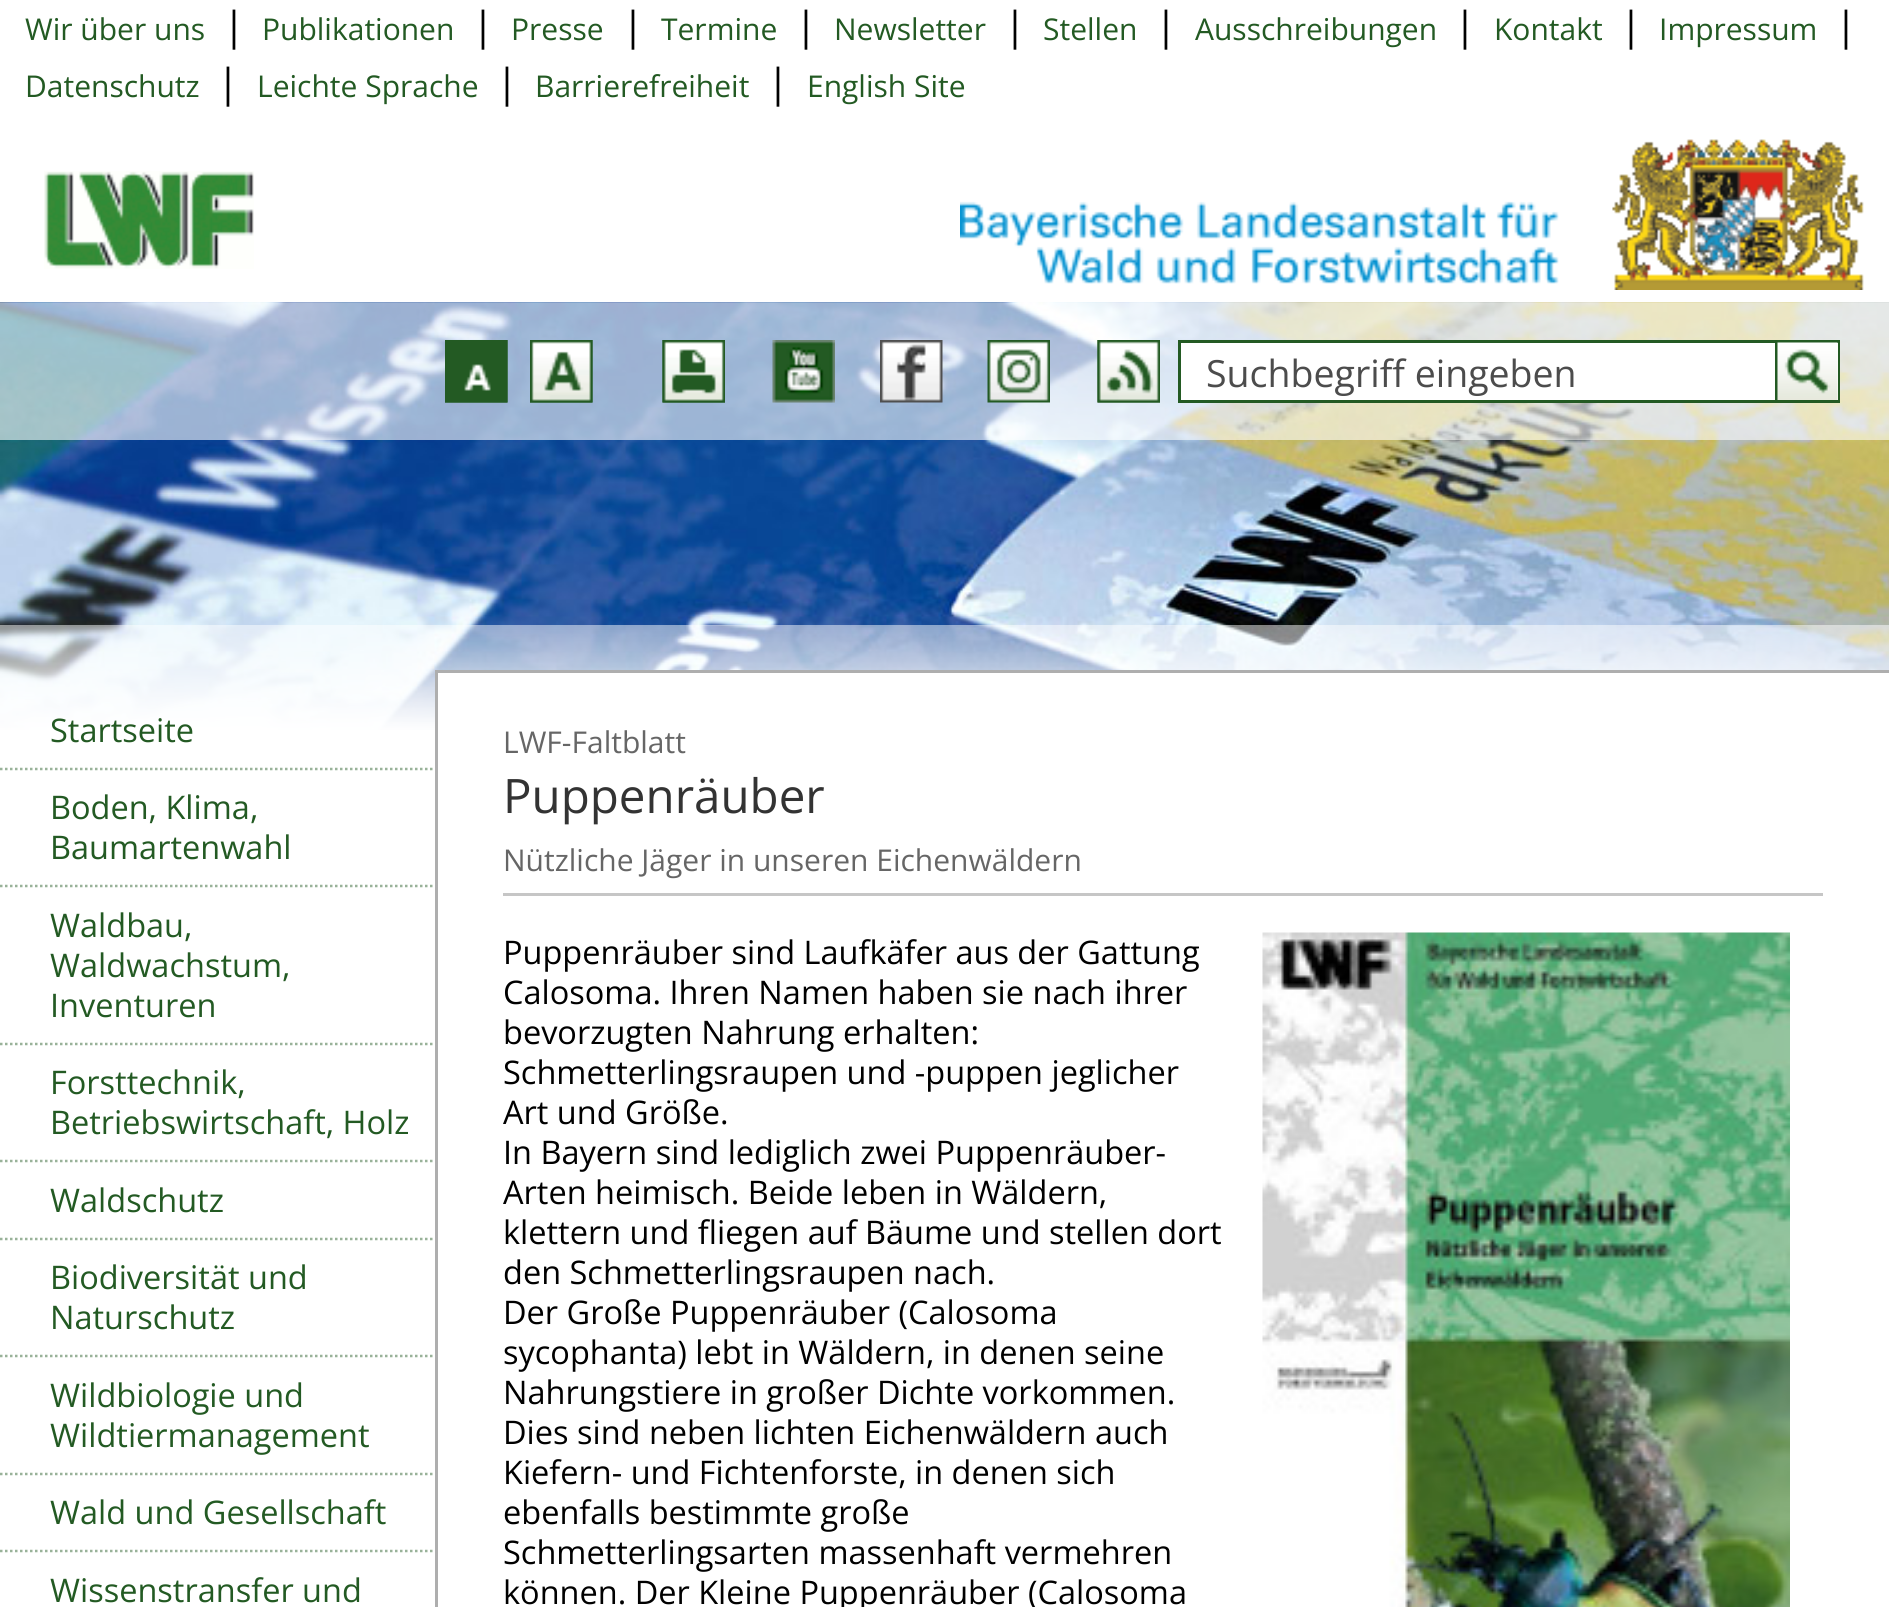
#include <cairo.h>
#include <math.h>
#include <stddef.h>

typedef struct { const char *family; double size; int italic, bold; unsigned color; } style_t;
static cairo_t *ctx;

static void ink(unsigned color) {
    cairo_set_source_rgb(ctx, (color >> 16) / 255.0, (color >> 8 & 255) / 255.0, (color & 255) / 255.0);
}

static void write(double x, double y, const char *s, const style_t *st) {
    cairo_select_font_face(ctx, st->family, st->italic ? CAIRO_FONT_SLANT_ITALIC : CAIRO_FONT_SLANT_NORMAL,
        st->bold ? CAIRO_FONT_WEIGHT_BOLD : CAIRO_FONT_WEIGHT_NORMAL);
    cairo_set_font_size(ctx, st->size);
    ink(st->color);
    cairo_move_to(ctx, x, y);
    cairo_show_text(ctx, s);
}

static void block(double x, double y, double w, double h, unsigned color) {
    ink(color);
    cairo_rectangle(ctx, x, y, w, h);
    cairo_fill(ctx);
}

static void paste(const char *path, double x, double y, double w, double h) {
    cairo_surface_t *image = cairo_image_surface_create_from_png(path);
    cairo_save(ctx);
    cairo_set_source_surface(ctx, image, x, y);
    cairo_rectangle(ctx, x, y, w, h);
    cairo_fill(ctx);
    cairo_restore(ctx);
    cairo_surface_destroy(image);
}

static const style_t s1 = {"Open Sans", 30, 0, 0, 0x235a23};
static const style_t s2 = {"Open Sans", 40, 0, 0, 0x000000};
static const style_t s3 = {"Open Sans", 37.5, 0, 0, 0x4c4c4c};
static const style_t s4 = {"Open Sans", 32.5, 0, 0, 0x235a23};
static const style_t s5 = {"Open Sans", 30, 0, 0, 0x666666};
static const style_t s6 = {"Open Sans", 47.5, 0, 0, 0x333333};
static const style_t s7 = {"Open Sans", 32.5, 0, 0, 0x000000};

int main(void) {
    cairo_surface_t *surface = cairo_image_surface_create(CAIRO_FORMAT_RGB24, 1889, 1607);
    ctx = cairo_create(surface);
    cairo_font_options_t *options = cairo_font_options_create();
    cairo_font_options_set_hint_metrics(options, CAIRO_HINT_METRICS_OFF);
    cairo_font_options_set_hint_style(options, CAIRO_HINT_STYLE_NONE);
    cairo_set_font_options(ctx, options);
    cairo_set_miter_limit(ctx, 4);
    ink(0xffffff);
    cairo_paint(ctx);
    write(25, 40, "Wir über uns", &s1);
    write(223, 40, "|", &s2);
    write(262, 40, "Publikationen", &s1);
    write(472, 40, "|", &s2);
    write(511, 40, "Presse", &s1);
    write(622, 40, "|", &s2);
    write(661, 40, "Termine", &s1);
    write(795, 40, "|", &s2);
    write(834, 40, "Newsletter", &s1);
    write(1004, 40, "|", &s2);
    write(1043, 40, "Stellen", &s1);
    write(1155, 40, "|", &s2);
    write(1195, 40, "Ausschreibungen", &s1);
    write(1454, 40, "|", &s2);
    write(1494, 40, "Kontakt", &s1);
    write(1620, 40, "|", &s2);
    write(1659, 40, "Impressum", &s1);
    write(1835, 40, "|", &s2);
    write(25, 97, "Datenschutz", &s1);
    write(217, 97, "|", &s2);
    write(257, 97, "Leichte Sprache", &s1);
    write(496, 97, "|", &s2);
    write(535, 97, "Barrierefreiheit", &s1);
    write(767, 97, "|", &s2);
    write(807, 97, "English Site", &s1);
    paste("pic1.png", 44, 171, 210, 98);
    paste("pic2.png", 960, 201, 599, 83);
    paste("pic3.png", 1612, 139, 252, 151);
    paste("pic4.png", 0, 302, 1889, 428);
    cairo_set_source_rgba(ctx, 1, 1, 1, 0.6);
    cairo_rectangle(ctx, 0, 303, 1889, 137);
    cairo_fill(ctx);
    paste("pic5.png", 445, 340, 63, 63);
    paste("pic6.png", 445, 340, 63, 63);
    paste("pic7.png", 530, 340, 63, 63);
    paste("pic8.png", 530, 340, 63, 63);
    paste("pic9.png", 662, 340, 63, 63);
    paste("pic10.png", 662, 340, 63, 63);
    paste("pic11.png", 772, 340, 63, 63);
    paste("pic12.png", 880, 340, 63, 63);
    paste("pic13.png", 987, 340, 63, 63);
    paste("pic14.png", 1097, 340, 63, 63);
    paste("pic15.png", 1097, 340, 63, 63);
    block(1181, 343, 594, 57, 0xffffff);
    cairo_rectangle(ctx, 1179.5, 341.5, 659, 60);
    ink(0x235a23);
    cairo_set_line_width(ctx, 3);
    cairo_stroke(ctx);
    write(1206, 387, "Suchbegriff eingeben", &s3);
    block(1837, 343, 1, 57, 0xffffff);
    block(1775, 340, 3, 63, 0x235a23);
    paste("pic16.png", 1777, 342, 61, 58);
    paste("pic17.png", 0, 625, 1889, 105);
    cairo_new_path(ctx);
    cairo_move_to(ctx, 0, 769);
    cairo_line_to(ctx, 435, 769);
    ink(0x99b299);
    cairo_set_line_width(ctx, 2.5);
    cairo_set_dash(ctx, (double[]){2.5, 2.5}, 2, 0);
    cairo_stroke(ctx);
    write(50, 742, "Startseite", &s4);
    cairo_new_path(ctx);
    cairo_move_to(ctx, 0, 886);
    cairo_line_to(ctx, 435, 886);
    ink(0x99b299);
    cairo_stroke(ctx);
    write(50, 819, "Boden, Klima,", &s4);
    write(50, 859, "Baumartenwahl", &s4);
    cairo_new_path(ctx);
    cairo_move_to(ctx, 0, 1044);
    cairo_line_to(ctx, 435, 1044);
    ink(0x99b299);
    cairo_stroke(ctx);
    write(50, 937, "Waldbau,", &s4);
    write(50, 977, "Waldwachstum,", &s4);
    write(50, 1017, "Inventuren", &s4);
    cairo_new_path(ctx);
    cairo_move_to(ctx, 0, 1161);
    cairo_line_to(ctx, 435, 1161);
    ink(0x99b299);
    cairo_stroke(ctx);
    write(50, 1094, "Forsttechnik,", &s4);
    write(50, 1134, "Betriebswirtschaft, Holz", &s4);
    cairo_new_path(ctx);
    cairo_move_to(ctx, 0, 1239);
    cairo_line_to(ctx, 435, 1239);
    ink(0x99b299);
    cairo_stroke(ctx);
    write(50, 1212, "Waldschutz", &s4);
    cairo_new_path(ctx);
    cairo_move_to(ctx, 0, 1356);
    cairo_line_to(ctx, 435, 1356);
    ink(0x99b299);
    cairo_stroke(ctx);
    write(50, 1289, "Biodiversität und", &s4);
    write(50, 1329, "Naturschutz", &s4);
    cairo_new_path(ctx);
    cairo_move_to(ctx, 0, 1474);
    cairo_line_to(ctx, 435, 1474);
    ink(0x99b299);
    cairo_stroke(ctx);
    write(50, 1407, "Wildbiologie und", &s4);
    write(50, 1447, "Wildtiermanagement", &s4);
    cairo_new_path(ctx);
    cairo_move_to(ctx, 0, 1551);
    cairo_line_to(ctx, 435, 1551);
    ink(0x99b299);
    cairo_stroke(ctx);
    write(50, 1524, "Wald und Gesellschaft", &s4);
    write(50, 1602, "Wissenstransfer und", &s4);
    block(438, 673, 1451, 57, 0xffffff);
    block(435, 670, 1454, 3, 0xaeaeae);
    block(435, 670, 3, 937, 0xaeaeae);
    block(503, 893, 1320, 3, 0xc6c6c6);
    write(503, 753, "LWF-Faltblatt", &s5);
    write(503, 813, "Puppenräuber", &s6);
    write(503, 871, "Nützliche Jäger in unseren Eichenwäldern", &s5);
    write(503, 964, "Puppenräuber sind Laufkäfer aus der Gattung", &s7);
    write(503, 1004, "Calosoma. Ihren Namen haben sie nach ihrer", &s7);
    write(503, 1044, "bevorzugten Nahrung erhalten:", &s7);
    write(503, 1084, "Schmetterlingsraupen und -puppen jeglicher", &s7);
    write(503, 1124, "Art und Größe.", &s7);
    write(503, 1164, "In Bayern sind lediglich zwei Puppenräuber-", &s7);
    write(503, 1204, "Arten heimisch. Beide leben in Wäldern,", &s7);
    write(503, 1244, "klettern und fliegen auf Bäume und stellen dort", &s7);
    write(503, 1284, "den Schmetterlingsraupen nach.", &s7);
    write(503, 1324, "Der Große Puppenräuber (Calosoma", &s7);
    write(503, 1364, "sycophanta) lebt in Wäldern, in denen seine", &s7);
    write(503, 1404, "Nahrungstiere in großer Dichte vorkommen.", &s7);
    write(503, 1444, "Dies sind neben lichten Eichenwäldern auch", &s7);
    write(503, 1484, "Kiefern- und Fichtenforste, in denen sich", &s7);
    write(503, 1524, "ebenfalls bestimmte große", &s7);
    write(503, 1564, "Schmetterlingsarten massenhaft vermehren", &s7);
    write(503, 1604, "können. Der Kleine Puppenräuber (Calosoma", &s7);
    paste("pic18.png", 1262, 932, 528, 675);
    cairo_surface_write_to_png(surface, "screenshot.png");
    cairo_font_options_destroy(options);
    cairo_destroy(ctx);
    cairo_surface_destroy(surface);
    return 0;
}
